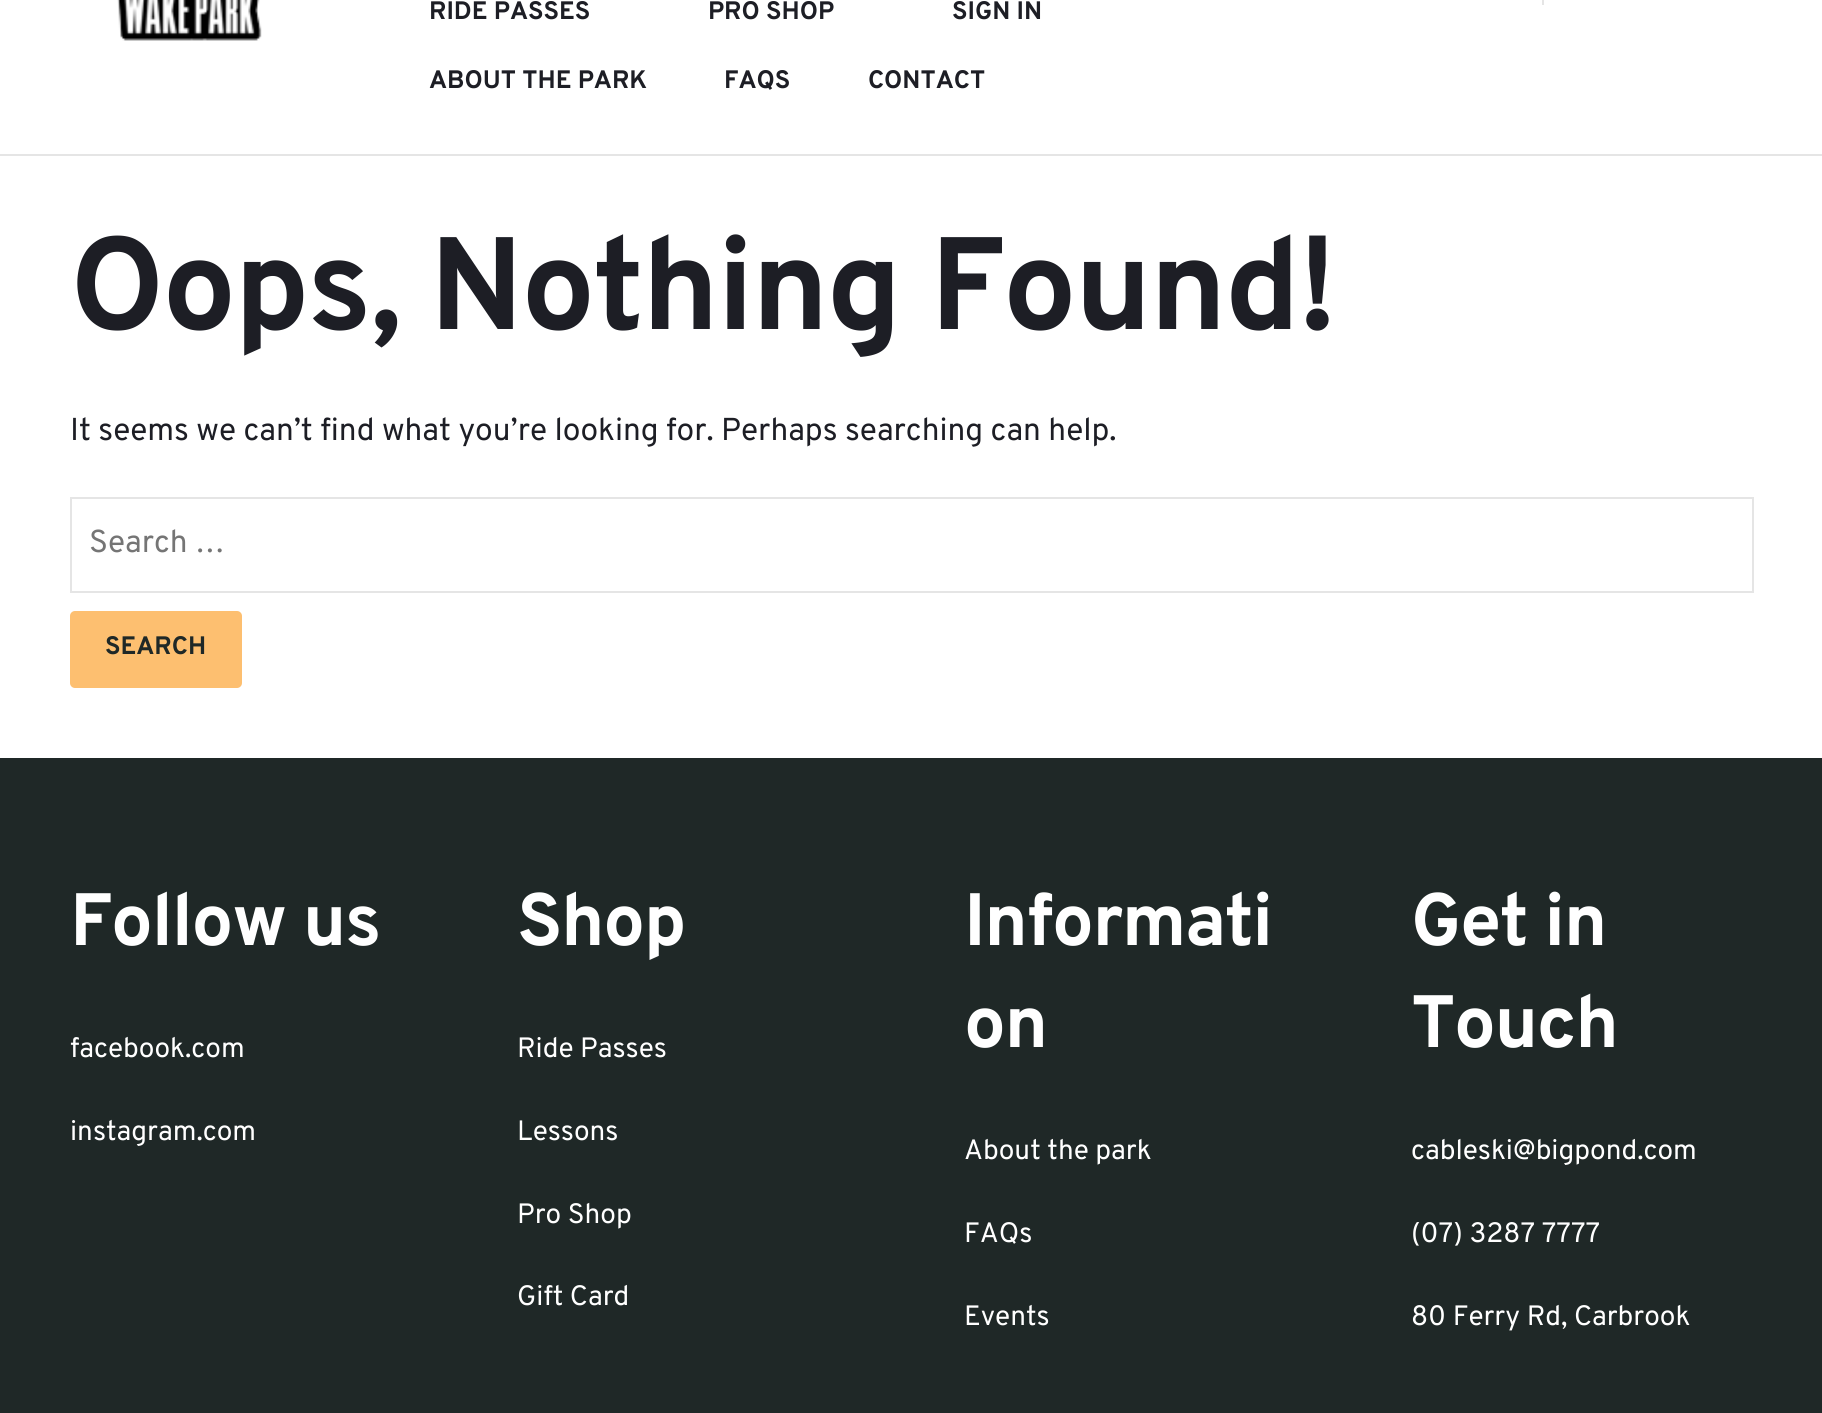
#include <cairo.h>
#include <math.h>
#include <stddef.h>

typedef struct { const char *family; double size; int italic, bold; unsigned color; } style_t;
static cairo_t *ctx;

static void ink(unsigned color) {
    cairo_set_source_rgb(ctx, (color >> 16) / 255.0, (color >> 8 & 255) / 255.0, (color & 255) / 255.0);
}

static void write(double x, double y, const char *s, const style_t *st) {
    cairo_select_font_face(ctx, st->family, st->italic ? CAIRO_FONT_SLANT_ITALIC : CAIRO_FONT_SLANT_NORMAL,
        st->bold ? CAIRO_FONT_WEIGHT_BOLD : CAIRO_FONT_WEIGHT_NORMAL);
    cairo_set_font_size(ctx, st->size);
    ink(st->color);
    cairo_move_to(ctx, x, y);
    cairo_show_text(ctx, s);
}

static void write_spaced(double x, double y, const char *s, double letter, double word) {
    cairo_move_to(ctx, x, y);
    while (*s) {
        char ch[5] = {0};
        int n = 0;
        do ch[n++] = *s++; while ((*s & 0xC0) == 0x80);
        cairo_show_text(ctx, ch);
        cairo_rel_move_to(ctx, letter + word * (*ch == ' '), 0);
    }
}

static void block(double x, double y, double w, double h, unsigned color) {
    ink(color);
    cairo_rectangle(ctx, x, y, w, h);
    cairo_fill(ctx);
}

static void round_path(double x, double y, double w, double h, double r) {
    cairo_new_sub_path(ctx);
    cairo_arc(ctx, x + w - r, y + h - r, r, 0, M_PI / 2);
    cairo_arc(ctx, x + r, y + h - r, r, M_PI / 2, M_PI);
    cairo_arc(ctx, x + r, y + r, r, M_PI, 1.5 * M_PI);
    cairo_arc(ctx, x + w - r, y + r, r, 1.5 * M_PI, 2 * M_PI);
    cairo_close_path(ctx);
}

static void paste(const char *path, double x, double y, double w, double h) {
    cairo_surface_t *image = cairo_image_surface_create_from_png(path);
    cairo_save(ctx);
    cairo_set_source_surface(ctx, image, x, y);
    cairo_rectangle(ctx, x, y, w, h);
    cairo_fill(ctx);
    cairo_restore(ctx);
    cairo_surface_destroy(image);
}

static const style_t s1 = {"Overpass", 25.25, 0, 1, 0x1d1e25};
static const style_t s2 = {"Overpass", 31.65, 0, 0, 0x1d1e25};
static const style_t s3 = {"Overpass", 31.65, 0, 0, 0x757575};
static const style_t s4 = {"Overpass", 25.25, 0, 1, 0x1f2827};
static const style_t s5 = {"Overpass", 28, 0, 0, 0xffffff};

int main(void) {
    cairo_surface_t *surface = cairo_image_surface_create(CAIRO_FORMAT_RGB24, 1822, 1413);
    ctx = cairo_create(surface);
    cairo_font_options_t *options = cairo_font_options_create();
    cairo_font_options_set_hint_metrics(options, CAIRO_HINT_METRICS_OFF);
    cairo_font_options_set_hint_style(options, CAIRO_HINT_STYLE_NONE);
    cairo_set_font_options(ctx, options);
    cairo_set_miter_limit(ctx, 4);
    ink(0xffffff);
    cairo_paint(ctx);
    block(0, 154, 1822, 2, 0xe5e5e5);
    paste("pic1.png", 117, 0, 145, 41);
    write(429, 19, "RIDE PASSES", &s1);
    write(708, 19, "PRO SHOP", &s1);
    write(952, 19, "SIGN IN", &s1);
    write(429, 88, "ABOUT THE PARK", &s1);
    write(724, 88, "FAQS", &s1);
    write(868, 88, "CONTACT", &s1);
    block(1542, 0, 2, 5, 0xe5e5e5);
    cairo_set_font_size(ctx, 131.25);
    ink(0x1d1e25);
    write_spaced(70, 329, "Oops, Nothing Found!", -2.6, 0);
    write(70, 440, "It seems we can’t find what you’re looking for. Perhaps searching can help.", &s2);
    cairo_rectangle(ctx, 71, 498, 1682, 94);
    ink(0xe5e5e5);
    cairo_stroke(ctx);
    write(89, 552, "Search …", &s3);
    ink(0xfdbf70);
    round_path(70, 611, 172, 77, 5);
    cairo_fill(ctx);
    write(105, 654, "SEARCH", &s4);
    block(0, 758, 1822, 655, 0x1f2827);
    cairo_set_font_size(ctx, 74);
    ink(0xffffff);
    write_spaced(70, 945, "Follow us", -1.5, 0);
    write(70, 1057, "facebook.com", &s5);
    write(70, 1140, "instagram.com", &s5);
    cairo_select_font_face(ctx, "Overpass", CAIRO_FONT_SLANT_NORMAL, CAIRO_FONT_WEIGHT_BOLD);
    cairo_set_font_size(ctx, 74);
    write_spaced(517, 945, "Shop", -1.5, 0);
    write(517, 1057, "Ride Passes", &s5);
    write(517, 1140, "Lessons", &s5);
    write(517, 1223, "Pro Shop", &s5);
    write(517, 1305, "Gift Card", &s5);
    cairo_select_font_face(ctx, "Overpass", CAIRO_FONT_SLANT_NORMAL, CAIRO_FONT_WEIGHT_BOLD);
    cairo_set_font_size(ctx, 74);
    write_spaced(964, 945, "Informati", -1.5, 0);
    write_spaced(964, 1047, "on", -1.5, 0);
    write(964, 1159, "About the park", &s5);
    write(964, 1242, "FAQs", &s5);
    write(964, 1325, "Events", &s5);
    cairo_select_font_face(ctx, "Overpass", CAIRO_FONT_SLANT_NORMAL, CAIRO_FONT_WEIGHT_BOLD);
    cairo_set_font_size(ctx, 74);
    write_spaced(1411, 945, "Get in", -1.5, 0);
    write_spaced(1411, 1047, "Touch", -1.5, 0);
    write(1411, 1159, "cableski@bigpond.com", &s5);
    write(1411, 1242, "(07) 3287 7777", &s5);
    write(1411, 1325, "80 Ferry Rd, Carbrook", &s5);
    cairo_surface_write_to_png(surface, "screenshot.png");
    cairo_font_options_destroy(options);
    cairo_destroy(ctx);
    cairo_surface_destroy(surface);
    return 0;
}
